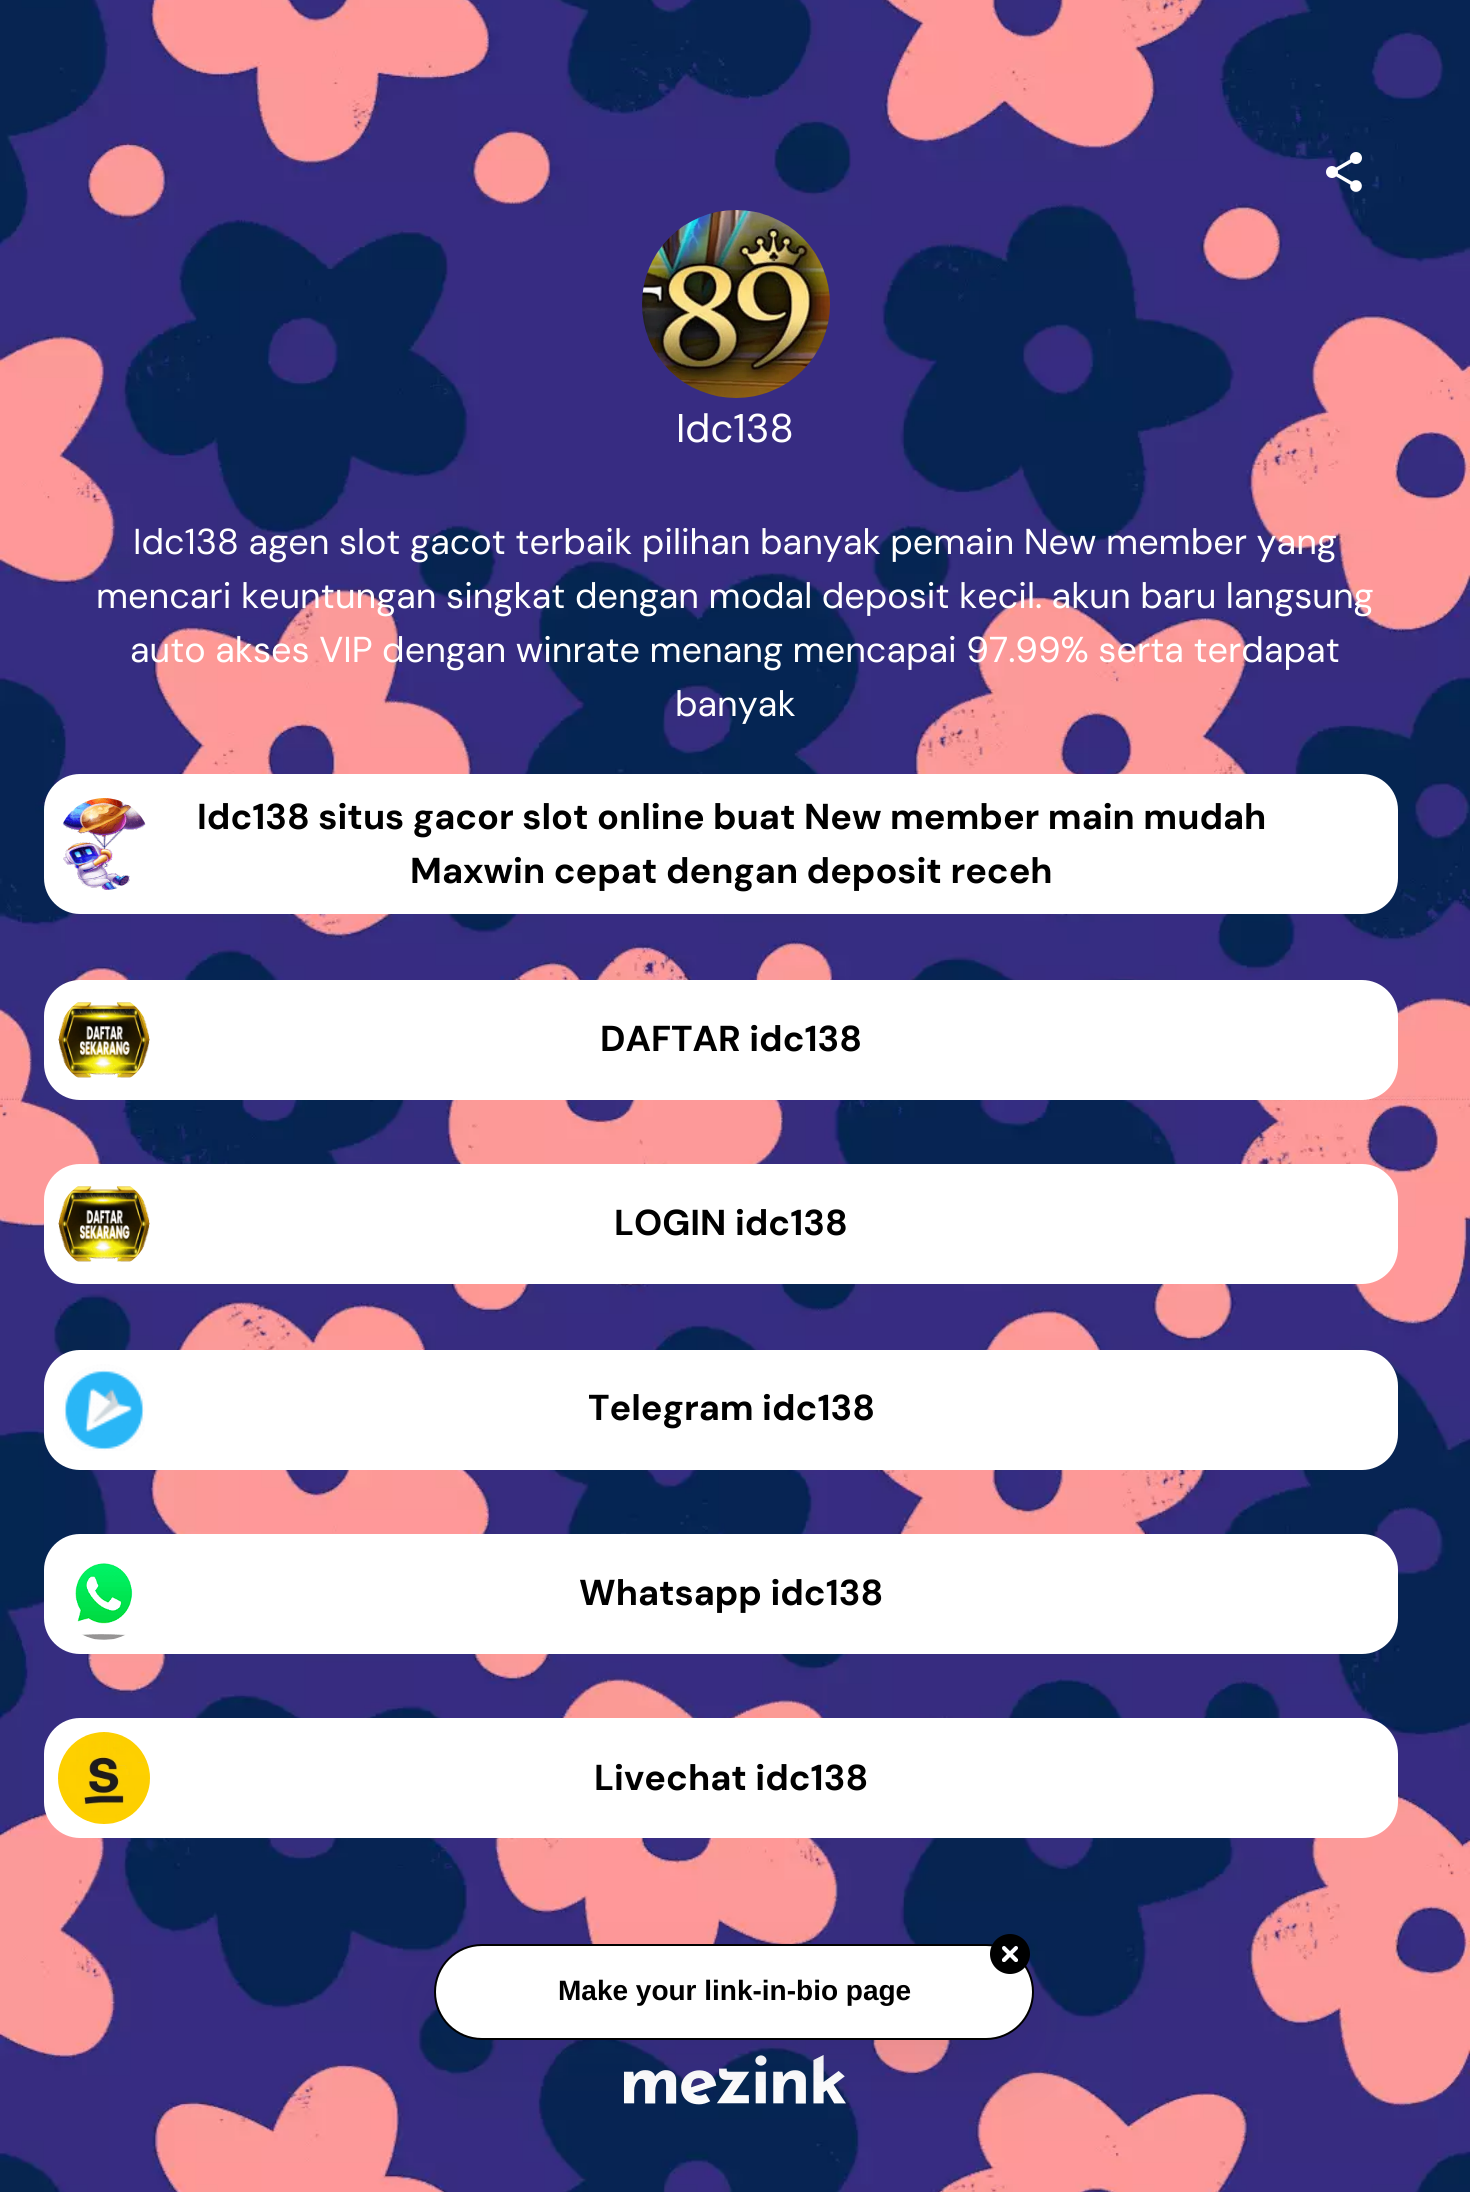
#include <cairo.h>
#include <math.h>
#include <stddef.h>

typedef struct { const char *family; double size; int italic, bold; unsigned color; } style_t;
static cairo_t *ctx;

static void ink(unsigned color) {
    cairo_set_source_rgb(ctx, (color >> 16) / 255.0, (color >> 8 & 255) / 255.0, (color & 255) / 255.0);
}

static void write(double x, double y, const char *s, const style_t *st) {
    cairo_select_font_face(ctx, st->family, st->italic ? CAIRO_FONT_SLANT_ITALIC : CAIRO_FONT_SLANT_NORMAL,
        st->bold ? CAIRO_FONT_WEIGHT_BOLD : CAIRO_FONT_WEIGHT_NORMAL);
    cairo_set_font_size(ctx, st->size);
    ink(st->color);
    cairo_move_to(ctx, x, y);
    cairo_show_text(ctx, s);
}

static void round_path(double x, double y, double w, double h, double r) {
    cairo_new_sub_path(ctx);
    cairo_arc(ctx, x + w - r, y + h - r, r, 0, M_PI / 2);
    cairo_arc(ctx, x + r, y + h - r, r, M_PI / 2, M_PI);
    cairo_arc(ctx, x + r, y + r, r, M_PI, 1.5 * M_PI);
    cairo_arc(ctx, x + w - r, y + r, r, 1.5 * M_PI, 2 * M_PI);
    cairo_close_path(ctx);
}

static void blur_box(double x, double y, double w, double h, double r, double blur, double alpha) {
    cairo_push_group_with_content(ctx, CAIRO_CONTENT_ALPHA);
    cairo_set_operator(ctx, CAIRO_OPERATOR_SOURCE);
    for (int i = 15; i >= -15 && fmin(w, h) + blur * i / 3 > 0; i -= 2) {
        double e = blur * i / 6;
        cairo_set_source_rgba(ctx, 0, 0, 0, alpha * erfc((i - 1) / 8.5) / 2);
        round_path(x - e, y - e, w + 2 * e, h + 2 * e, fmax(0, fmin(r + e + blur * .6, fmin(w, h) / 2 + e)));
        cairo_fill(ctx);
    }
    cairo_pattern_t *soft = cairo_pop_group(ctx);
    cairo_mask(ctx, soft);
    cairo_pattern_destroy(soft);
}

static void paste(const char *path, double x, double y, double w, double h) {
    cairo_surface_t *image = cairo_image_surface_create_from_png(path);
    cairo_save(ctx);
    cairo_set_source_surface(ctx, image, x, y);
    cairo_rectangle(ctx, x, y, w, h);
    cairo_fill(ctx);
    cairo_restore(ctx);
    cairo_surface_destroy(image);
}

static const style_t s1 = {"DM Sans", 40, 0, 0, 0xffffff};
static const style_t s2 = {"DM Sans", 36, 0, 0, 0xffffff};
static const style_t s3 = {"DM Sans", 36, 0, 1, 0x000000};
static const style_t s4 = {"Arimo", 28, 0, 1, 0x000000};

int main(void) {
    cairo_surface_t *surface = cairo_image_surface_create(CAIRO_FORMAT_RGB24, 1470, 2192);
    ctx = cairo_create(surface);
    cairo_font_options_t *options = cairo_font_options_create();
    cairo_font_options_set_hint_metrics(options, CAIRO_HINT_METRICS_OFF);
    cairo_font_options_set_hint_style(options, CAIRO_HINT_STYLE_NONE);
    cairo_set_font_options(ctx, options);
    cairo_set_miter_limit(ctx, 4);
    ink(0xffffff);
    cairo_paint(ctx);
    paste("pic1.png", 0, 0, 1470, 2192);
    paste("pic2.png", 1326, 152, 36, 40);
    paste("pic3.png", 642, 210, 188, 188);
    write(676, 442, "Idc138", &s1);
    write(133, 554, "Idc138 agen slot gacot terbaik pilihan banyak pemain New member yang", &s2);
    write(96, 608, "mencari keuntungan singkat dengan modal deposit kecil. akun baru langsung", &s2);
    write(130, 662, "auto akses VIP dengan winrate menang mencapai 97.99% serta terdapat", &s2);
    write(675, 716, "banyak", &s2);
    round_path(44, 774, 1354, 140, 36);
    cairo_fill(ctx);
    paste("pic4.png", 62, 798, 84, 92);
    write(197, 829, "Idc138 situs gacor slot online buat New member main mudah", &s3);
    write(410, 883, "Maxwin cepat dengan deposit receh", &s3);
    ink(0xffffff);
    round_path(44, 980, 1354, 120, 36);
    cairo_fill(ctx);
    paste("pic5.png", 58, 1002, 92, 76);
    write(600, 1051, "DAFTAR idc138", &s3);
    ink(0xffffff);
    round_path(44, 1164, 1354, 120, 36);
    cairo_fill(ctx);
    paste("pic6.png", 58, 1186, 92, 76);
    write(614, 1235, "LOGIN idc138", &s3);
    ink(0xffffff);
    round_path(44, 1350, 1354, 120, 36);
    cairo_fill(ctx);
    paste("pic7.png", 63, 1364, 82, 87);
    write(588, 1420, "Telegram idc138", &s3);
    ink(0xffffff);
    round_path(44, 1534, 1354, 120, 36);
    cairo_fill(ctx);
    paste("pic8.png", 75, 1563, 58, 77);
    write(579, 1605, "Whatsapp idc138", &s3);
    ink(0xffffff);
    round_path(44, 1718, 1354, 120, 36);
    cairo_fill(ctx);
    paste("pic9.png", 58, 1732, 92, 92);
    write(594, 1790, "Livechat idc138", &s3);
    paste("pic11.png", 624, 2055, 222, 50);
    ink(0x191f3d);
    blur_box(434, 1972, 600, 96, 48, 27.5, 0.1);
    ink(0xffffff);
    round_path(435, 1945, 598, 94, 47);
    cairo_fill_preserve(ctx);
    ink(0x000000);
    cairo_stroke(ctx);
    paste("pic10.png", 990, 1934, 40, 40);
    write(558, 2000, "Make your link-in-bio page", &s4);
    cairo_surface_write_to_png(surface, "screenshot.png");
    cairo_font_options_destroy(options);
    cairo_destroy(ctx);
    cairo_surface_destroy(surface);
    return 0;
}
